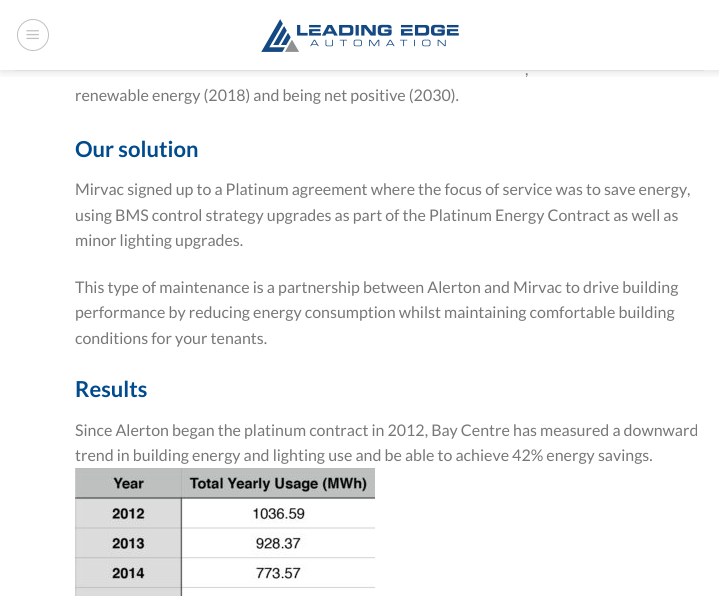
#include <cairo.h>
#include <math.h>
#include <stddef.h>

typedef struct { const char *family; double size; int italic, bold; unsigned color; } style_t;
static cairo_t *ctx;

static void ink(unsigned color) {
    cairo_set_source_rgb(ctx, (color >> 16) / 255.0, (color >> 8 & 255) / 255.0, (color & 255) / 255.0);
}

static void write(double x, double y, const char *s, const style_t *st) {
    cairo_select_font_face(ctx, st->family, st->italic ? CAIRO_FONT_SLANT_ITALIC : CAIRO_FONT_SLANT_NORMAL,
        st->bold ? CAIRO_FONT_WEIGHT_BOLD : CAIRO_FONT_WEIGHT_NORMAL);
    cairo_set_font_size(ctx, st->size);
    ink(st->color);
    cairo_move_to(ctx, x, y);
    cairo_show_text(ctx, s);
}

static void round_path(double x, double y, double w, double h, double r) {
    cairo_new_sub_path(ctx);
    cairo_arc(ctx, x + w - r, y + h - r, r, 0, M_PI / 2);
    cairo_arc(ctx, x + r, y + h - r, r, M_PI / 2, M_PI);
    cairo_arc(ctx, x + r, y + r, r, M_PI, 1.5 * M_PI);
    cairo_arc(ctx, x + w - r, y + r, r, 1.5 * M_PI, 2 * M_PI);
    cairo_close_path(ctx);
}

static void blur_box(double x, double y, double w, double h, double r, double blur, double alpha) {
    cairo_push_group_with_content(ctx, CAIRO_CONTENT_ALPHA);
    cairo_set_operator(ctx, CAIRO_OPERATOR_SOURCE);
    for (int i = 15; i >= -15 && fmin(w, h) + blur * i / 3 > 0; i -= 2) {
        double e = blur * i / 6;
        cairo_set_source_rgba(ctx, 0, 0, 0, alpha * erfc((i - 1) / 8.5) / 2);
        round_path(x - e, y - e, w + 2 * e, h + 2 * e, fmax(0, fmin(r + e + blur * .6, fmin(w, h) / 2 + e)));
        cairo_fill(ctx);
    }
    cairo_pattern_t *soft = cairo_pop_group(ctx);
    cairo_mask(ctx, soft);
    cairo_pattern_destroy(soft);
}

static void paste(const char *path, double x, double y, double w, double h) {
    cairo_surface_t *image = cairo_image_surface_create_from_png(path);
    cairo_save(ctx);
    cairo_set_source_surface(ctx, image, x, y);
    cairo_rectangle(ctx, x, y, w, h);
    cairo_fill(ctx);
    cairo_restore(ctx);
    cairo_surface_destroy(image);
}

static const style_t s1 = {"Lato", 16, 0, 0, 0x777777};
static const style_t s2 = {"Lato", 22, 0, 1, 0x004b8d};

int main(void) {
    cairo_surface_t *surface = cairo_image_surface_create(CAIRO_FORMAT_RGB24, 719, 596);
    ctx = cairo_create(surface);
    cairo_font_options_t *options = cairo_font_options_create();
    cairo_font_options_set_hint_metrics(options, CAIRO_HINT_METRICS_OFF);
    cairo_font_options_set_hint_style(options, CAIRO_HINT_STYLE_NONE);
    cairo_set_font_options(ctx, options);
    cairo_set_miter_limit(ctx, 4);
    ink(0xffffff);
    cairo_paint(ctx);
    cairo_save(ctx);
    cairo_rectangle(ctx, 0, 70, 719, 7);
    cairo_clip(ctx);
    ink(0x000000);
    blur_box(1, 1, 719, 70, 0, 5, 0.15);
    cairo_restore(ctx);
    cairo_arc(ctx, 33, 35, 15.5, 0, 2 * M_PI);
    ink(0xc0c0c0);
    cairo_set_line_width(ctx, 1);
    cairo_stroke(ctx);
    paste("pic1.png", 26, 30, 13, 10);
    paste("pic2.png", 261, 19, 198, 33);
    cairo_set_source_rgba(ctx, 0.467, 0.467, 0.467, 0.1);
    cairo_rectangle(ctx, 15, 70, 689, 1);
    cairo_fill(ctx);
    write(525, 75, ",", &s1);
    write(75, 101, "renewable energy (2018) and being net positive (2030).", &s1);
    write(75, 157, "Our solution", &s2);
    write(75, 195, "Mirvac signed up to a Platinum agreement where the focus of service was to save energy,", &s1);
    write(75, 221, "using BMS control strategy upgrades as part of the Platinum Energy Contract as well as", &s1);
    write(75, 246, "minor lighting upgrades.", &s1);
    write(75, 293, "This type of maintenance is a partnership between Alerton and Mirvac to drive building", &s1);
    write(75, 318, "performance by reducing energy consumption whilst maintaining comfortable building", &s1);
    write(75, 344, "conditions for your tenants.", &s1);
    write(75, 397, "Results", &s2);
    write(75, 436, "Since Alerton began the platinum contract in 2012, Bay Centre has measured a downward", &s1);
    write(75, 461, "trend in building energy and lighting use and be able to achieve 42% energy savings.", &s1);
    paste("pic3.png", 75, 468, 300, 128);
    cairo_surface_write_to_png(surface, "screenshot.png");
    cairo_font_options_destroy(options);
    cairo_destroy(ctx);
    cairo_surface_destroy(surface);
    return 0;
}
